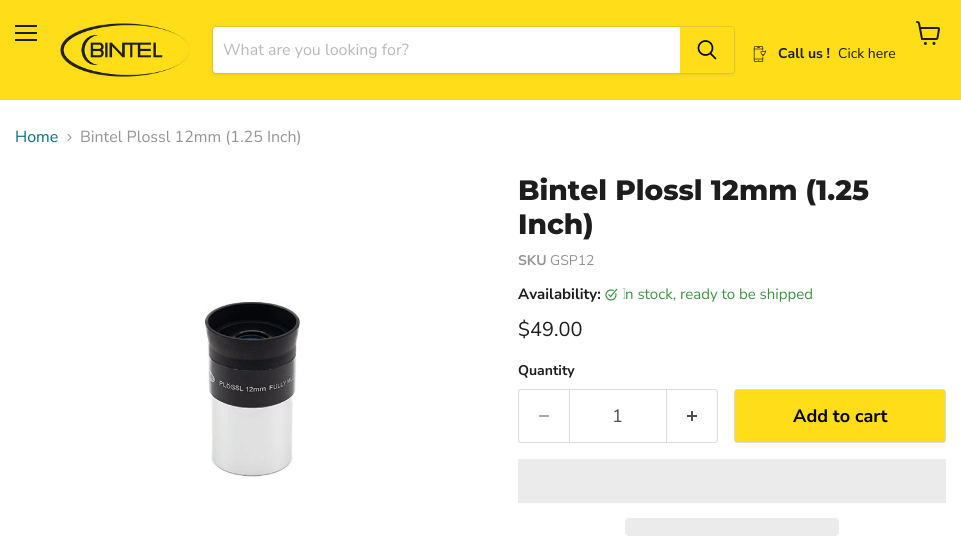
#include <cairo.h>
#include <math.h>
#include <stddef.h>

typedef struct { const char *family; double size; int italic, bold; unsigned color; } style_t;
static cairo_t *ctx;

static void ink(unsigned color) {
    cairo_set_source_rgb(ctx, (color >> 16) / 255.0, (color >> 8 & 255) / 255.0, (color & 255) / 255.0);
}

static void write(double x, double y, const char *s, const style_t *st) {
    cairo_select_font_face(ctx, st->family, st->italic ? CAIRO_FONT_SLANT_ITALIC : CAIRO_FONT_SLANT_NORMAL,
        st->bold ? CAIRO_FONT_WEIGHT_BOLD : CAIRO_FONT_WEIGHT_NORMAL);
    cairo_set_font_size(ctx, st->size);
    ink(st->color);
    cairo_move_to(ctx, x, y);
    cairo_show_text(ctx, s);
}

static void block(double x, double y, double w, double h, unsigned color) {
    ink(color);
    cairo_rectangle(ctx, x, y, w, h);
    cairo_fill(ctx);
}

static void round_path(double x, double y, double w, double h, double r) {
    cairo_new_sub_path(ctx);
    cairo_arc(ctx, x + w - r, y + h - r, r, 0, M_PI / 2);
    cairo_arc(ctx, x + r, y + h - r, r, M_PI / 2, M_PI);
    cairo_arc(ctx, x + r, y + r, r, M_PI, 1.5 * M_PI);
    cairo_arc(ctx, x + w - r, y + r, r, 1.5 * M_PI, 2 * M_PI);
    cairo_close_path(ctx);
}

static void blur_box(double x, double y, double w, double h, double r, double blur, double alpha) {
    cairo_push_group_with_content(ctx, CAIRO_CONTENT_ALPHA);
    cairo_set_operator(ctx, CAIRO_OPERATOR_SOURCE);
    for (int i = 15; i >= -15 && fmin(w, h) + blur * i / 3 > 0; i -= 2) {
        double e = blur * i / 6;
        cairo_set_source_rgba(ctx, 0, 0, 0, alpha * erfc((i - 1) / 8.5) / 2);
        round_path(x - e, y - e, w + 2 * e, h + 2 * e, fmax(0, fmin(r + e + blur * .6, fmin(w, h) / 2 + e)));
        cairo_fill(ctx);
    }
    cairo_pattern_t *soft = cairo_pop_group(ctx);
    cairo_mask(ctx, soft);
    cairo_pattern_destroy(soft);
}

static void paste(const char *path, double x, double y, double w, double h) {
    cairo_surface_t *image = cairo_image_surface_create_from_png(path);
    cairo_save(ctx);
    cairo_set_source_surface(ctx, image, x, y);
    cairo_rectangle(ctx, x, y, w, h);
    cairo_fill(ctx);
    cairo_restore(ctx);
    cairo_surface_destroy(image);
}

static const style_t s1 = {"Nunito Sans", 16, 0, 0, 0xb8b8b8};
static const style_t s2 = {"Nunito Sans", 14, 0, 1, 0x1d1d1d};
static const style_t s3 = {"Nunito Sans", 14, 0, 0, 0x1d1d1d};
static const style_t s4 = {"Nunito Sans", 16, 0, 0, 0x046e82};
static const style_t s5 = {"Nunito Sans", 16, 0, 0, 0x949494};
static const style_t s6 = {"Montserrat ExtraBold", 28, 0, 0, 0x1d1d1d};
static const style_t s7 = {"Nunito Sans", 14, 0, 1, 0x949494};
static const style_t s8 = {"Nunito Sans", 14, 0, 0, 0x949494};
static const style_t s9 = {"Nunito Sans", 15, 0, 1, 0x1d1d1d};
static const style_t s10 = {"Noto Sans Thin", 15, 0, 0, 0x3c9342};
static const style_t s11 = {"Nunito Sans", 15, 0, 0, 0x3c9342};
static const style_t s12 = {"Nunito Sans", 20, 0, 0, 0x1d1d1d};
static const style_t s13 = {"Nunito Sans", 18, 0, 0, 0x4d4d4d};
static const style_t s14 = {"Nunito Sans", 18, 0, 1, 0x000000};

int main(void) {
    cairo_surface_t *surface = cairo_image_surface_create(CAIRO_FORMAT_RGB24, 961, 548);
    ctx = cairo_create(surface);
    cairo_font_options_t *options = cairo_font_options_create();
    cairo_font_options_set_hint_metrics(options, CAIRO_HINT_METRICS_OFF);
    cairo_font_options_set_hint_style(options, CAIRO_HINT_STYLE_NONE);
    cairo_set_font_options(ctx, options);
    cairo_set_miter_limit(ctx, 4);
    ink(0xffffff);
    cairo_paint(ctx);
    block(0, 0, 961, 100, 0xffdd18);
    block(15, 25, 22, 2, 0x1d1d1d);
    block(15, 32, 22, 2, 0x1d1d1d);
    block(15, 39, 22, 2, 0x1d1d1d);
    paste("pic1.png", 916, 21, 24, 24);
    paste("pic2.png", 60, 23, 130, 54);
    ink(0x808080);
    blur_box(212, 28, 523, 48, 4, 1.5, 0.11);
    round_path(212.5, 26.5, 522, 47, 3.5);
    cairo_set_source_rgba(ctx, 0.502, 0.502, 0.502, 0.2);
    cairo_set_line_width(ctx, 1);
    cairo_stroke(ctx);
    ink(0xffffff);
    cairo_new_path(ctx);
    cairo_move_to(ctx, 216, 27);
    cairo_line_to(ctx, 680, 27);
    cairo_line_to(ctx, 680, 73);
    cairo_line_to(ctx, 216, 73);
    cairo_curve_to(ctx, 214.5, 73, 213, 71.5, 213, 70);
    cairo_line_to(ctx, 213, 30);
    cairo_curve_to(ctx, 213, 28.5, 214.5, 27, 216, 27);
    cairo_close_path(ctx);
    cairo_fill(ctx);
    write(223, 55, "What are you looking for?", &s1);
    ink(0xffdd18);
    cairo_new_path(ctx);
    cairo_move_to(ctx, 680.5, 27.5);
    cairo_line_to(ctx, 731, 27.5);
    cairo_curve_to(ctx, 732.5, 27.5, 733.5, 28.5, 733.5, 30);
    cairo_line_to(ctx, 733.5, 70);
    cairo_curve_to(ctx, 733.5, 71.5, 732.5, 72.5, 731, 72.5);
    cairo_line_to(ctx, 680.5, 72.5);
    cairo_close_path(ctx);
    cairo_fill_preserve(ctx);
    cairo_stroke(ctx);
    cairo_new_path(ctx);
    cairo_move_to(ctx, 715.5, 58.5);
    cairo_line_to(ctx, 710.5, 53.5);
    ink(0x000000);
    cairo_set_line_width(ctx, 1.7);
    cairo_set_line_cap(ctx, CAIRO_LINE_CAP_ROUND);
    cairo_stroke(ctx);
    cairo_arc(ctx, 705.5, 48, 7, 0, 2 * M_PI);
    cairo_set_line_cap(ctx, CAIRO_LINE_CAP_BUTT);
    cairo_stroke(ctx);
    paste("pic3.png", 753, 46, 14, 16);
    write(778, 58, "Call us !", &s2);
    write(838, 58, "Cick here", &s3);
    write(15, 142, "Home", &s4);
    paste("pic4.png", 67, 134, 5, 7);
    write(80, 142, "Bintel Plossl 12mm (1.25 Inch)", &s5);
    paste("pic5.png", 202, 299, 98, 179);
    write(518, 200, "Bintel Plossl 12mm (1.25", &s6);
    write(518, 234, "Inch)", &s6);
    write(518, 265, "SKU", &s7);
    write(550, 265, "GSP12", &s8);
    write(518, 299, "Availability:", &s9);
    paste("pic6.png", 605, 288, 13, 13);
    write(622, 299, "I", &s10);
    write(625, 299, "n stock, ready to be shipped", &s11);
    write(518, 336, "$49.00", &s12);
    write(518, 375, "Quantity", &s2);
    ink(0xdddddd);
    cairo_set_fill_rule(ctx, CAIRO_FILL_RULE_EVEN_ODD);
    cairo_new_path(ctx);
    cairo_move_to(ctx, 521, 389);
    cairo_line_to(ctx, 569, 389);
    cairo_line_to(ctx, 569, 443);
    cairo_line_to(ctx, 521, 443);
    cairo_curve_to(ctx, 519, 443, 518, 442, 518, 440);
    cairo_line_to(ctx, 518, 392);
    cairo_curve_to(ctx, 518, 390, 519, 389, 521, 389);
    cairo_close_path(ctx);
    cairo_move_to(ctx, 521, 390);
    cairo_line_to(ctx, 569, 390);
    cairo_line_to(ctx, 569, 442);
    cairo_line_to(ctx, 521, 442);
    cairo_curve_to(ctx, 520, 442, 519, 441, 519, 440);
    cairo_line_to(ctx, 519, 392);
    cairo_curve_to(ctx, 519, 391, 520, 390, 521, 390);
    cairo_close_path(ctx);
    cairo_fill(ctx);
    block(539, 415, 10, 2, 0xa6a6a6);
    cairo_rectangle(ctx, 569.5, 389.5, 97, 53);
    ink(0xdddddd);
    cairo_set_line_width(ctx, 1);
    cairo_stroke(ctx);
    write(612, 422, "1", &s13);
    ink(0xdddddd);
    cairo_new_path(ctx);
    cairo_move_to(ctx, 667, 389);
    cairo_line_to(ctx, 715, 389);
    cairo_curve_to(ctx, 717, 389, 718, 390, 718, 392);
    cairo_line_to(ctx, 718, 440);
    cairo_curve_to(ctx, 718, 442, 717, 443, 715, 443);
    cairo_line_to(ctx, 667, 443);
    cairo_close_path(ctx);
    cairo_move_to(ctx, 667, 390);
    cairo_line_to(ctx, 715, 390);
    cairo_curve_to(ctx, 716, 390, 717, 391, 717, 392);
    cairo_line_to(ctx, 717, 440);
    cairo_curve_to(ctx, 717, 441, 716, 442, 715, 442);
    cairo_line_to(ctx, 667, 442);
    cairo_close_path(ctx);
    cairo_fill(ctx);
    paste("pic7.png", 687, 411, 10, 10);
    ink(0xffdd18);
    round_path(734.5, 389.5, 211, 53, 2.5);
    cairo_fill_preserve(ctx);
    ink(0xdddddd);
    cairo_stroke(ctx);
    write(793, 422, "Add to cart", &s14);
    block(518, 459, 428, 44, 0xebebeb);
    round_path(625, 518, 214, 18, 4);
    cairo_fill(ctx);
    cairo_surface_write_to_png(surface, "screenshot.png");
    cairo_font_options_destroy(options);
    cairo_destroy(ctx);
    cairo_surface_destroy(surface);
    return 0;
}
